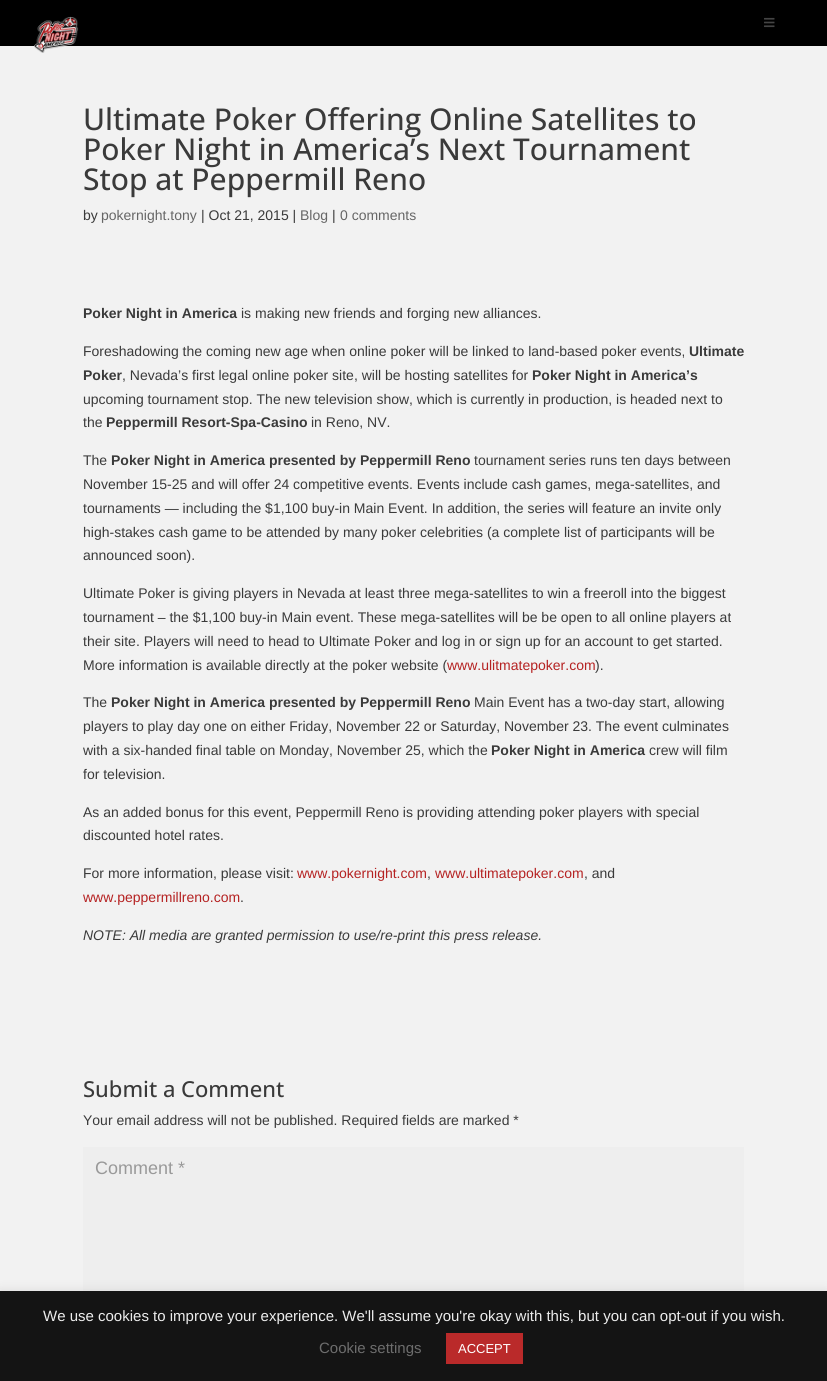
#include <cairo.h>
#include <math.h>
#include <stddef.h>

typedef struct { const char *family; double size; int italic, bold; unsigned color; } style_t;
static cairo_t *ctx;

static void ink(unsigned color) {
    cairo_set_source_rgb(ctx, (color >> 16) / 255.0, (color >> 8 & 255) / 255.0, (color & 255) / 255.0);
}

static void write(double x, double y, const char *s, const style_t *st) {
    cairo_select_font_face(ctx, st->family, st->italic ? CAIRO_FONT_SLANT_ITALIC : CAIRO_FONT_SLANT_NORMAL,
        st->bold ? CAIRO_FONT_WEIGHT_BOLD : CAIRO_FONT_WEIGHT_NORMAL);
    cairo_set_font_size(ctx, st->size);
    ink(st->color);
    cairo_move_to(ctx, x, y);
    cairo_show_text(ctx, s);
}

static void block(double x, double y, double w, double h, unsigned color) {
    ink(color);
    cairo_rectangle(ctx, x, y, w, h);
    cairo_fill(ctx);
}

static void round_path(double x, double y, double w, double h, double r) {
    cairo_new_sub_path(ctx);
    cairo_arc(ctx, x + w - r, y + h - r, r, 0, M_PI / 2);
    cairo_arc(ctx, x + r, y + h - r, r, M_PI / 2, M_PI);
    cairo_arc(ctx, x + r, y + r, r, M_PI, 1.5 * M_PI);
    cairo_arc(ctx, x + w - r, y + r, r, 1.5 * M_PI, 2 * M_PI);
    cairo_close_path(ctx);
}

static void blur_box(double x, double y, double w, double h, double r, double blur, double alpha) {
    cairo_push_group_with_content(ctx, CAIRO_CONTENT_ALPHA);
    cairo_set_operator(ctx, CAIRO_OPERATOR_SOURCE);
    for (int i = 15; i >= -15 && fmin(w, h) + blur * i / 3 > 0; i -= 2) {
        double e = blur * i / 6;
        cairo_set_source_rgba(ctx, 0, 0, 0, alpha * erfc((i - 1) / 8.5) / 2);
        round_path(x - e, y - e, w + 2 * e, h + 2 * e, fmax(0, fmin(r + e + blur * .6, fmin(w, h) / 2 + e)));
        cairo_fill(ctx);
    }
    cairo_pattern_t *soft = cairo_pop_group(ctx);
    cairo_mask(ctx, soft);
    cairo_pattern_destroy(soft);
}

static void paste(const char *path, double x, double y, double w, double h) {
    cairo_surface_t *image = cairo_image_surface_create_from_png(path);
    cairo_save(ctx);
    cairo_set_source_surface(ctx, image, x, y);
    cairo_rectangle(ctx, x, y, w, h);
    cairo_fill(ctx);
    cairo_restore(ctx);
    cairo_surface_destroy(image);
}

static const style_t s1 = {"Open Sans Medium", 30, 0, 0, 0x3a3a3a};
static const style_t s2 = {"Liberation Sans", 14, 0, 0, 0x3a3a3a};
static const style_t s3 = {"Liberation Sans", 14, 0, 0, 0x666666};
static const style_t s4 = {"Liberation Sans", 14, 0, 1, 0x3a3a3a};
static const style_t s5 = {"Liberation Sans", 14, 0, 0, 0xb52222};
static const style_t s6 = {"Liberation Sans", 14, 1, 0, 0x3a3a3a};
static const style_t s7 = {"Open Sans Medium", 22, 0, 0, 0x3a3a3a};
static const style_t s8 = {"Liberation Sans", 18, 0, 0, 0x999999};
static const style_t s9 = {"Liberation Sans", 15, 0, 0, 0xededed};
static const style_t s10 = {"Liberation Sans", 15, 0, 0, 0x6d6d6d};
static const style_t s11 = {"Liberation Sans", 13, 0, 0, 0xffffff};

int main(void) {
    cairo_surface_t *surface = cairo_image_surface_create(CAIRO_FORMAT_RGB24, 827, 1381);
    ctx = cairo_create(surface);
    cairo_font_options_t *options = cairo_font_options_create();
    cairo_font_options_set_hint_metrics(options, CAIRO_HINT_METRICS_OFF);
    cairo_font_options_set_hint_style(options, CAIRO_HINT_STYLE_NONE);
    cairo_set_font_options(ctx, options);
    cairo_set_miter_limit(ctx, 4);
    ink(0x000000);
    cairo_paint(ctx);
    block(0, 46, 827, 1245, 0xf2f2f2);
    paste("pic1.png", 34, 16, 45, 37);
    paste("pic2.png", 764, 17, 11, 11);
    write(83, 130, "Ultimate Poker Offering Online Satellites to", &s1);
    write(83, 160, "Poker Night in America’s Next Tournament", &s1);
    write(83, 190, "Stop at Peppermill Reno", &s1);
    write(83, 220, "by", &s2);
    write(101, 220, "pokernight.tony", &s3);
    write(201, 220, "| Oct 21, 2015 |", &s2);
    write(300, 220, "Blog", &s3);
    write(332, 220, "|", &s2);
    write(340, 220, "0 comments", &s3);
    write(83, 318, "Poker Night in America", &s4);
    write(241, 318, "is making new friends and forging new alliances.", &s2);
    write(83, 356, "Foreshadowing the coming new age when online poker will be linked to land-based poker events,", &s2);
    write(689, 356, "Ultimate", &s4);
    write(83, 380, "Poker", &s4);
    write(122, 380, ", Nevada’s first legal online poker site, will be hosting satellites for", &s2);
    write(532, 380, "Poker Night in America’s", &s4);
    write(83, 404, "upcoming tournament stop. The new television show, which is currently in production, is headed next to", &s2);
    write(83, 427, "the", &s2);
    write(106, 427, "Peppermill Resort-Spa-Casino", &s4);
    write(311, 427, "in Reno, NV.", &s2);
    write(83, 465, "The", &s2);
    write(111, 465, "Poker Night in America presented by Peppermill Reno", &s4);
    write(474, 465, "tournament series runs ten days between", &s2);
    write(83, 489, "November 15-25 and will offer 24 competitive events. Events include cash games, mega-satellites, and", &s2);
    write(83, 513, "tournaments — including the $1,100 buy-in Main Event. In addition, the series will feature an invite only", &s2);
    write(83, 537, "high-stakes cash game to be attended by many poker celebrities (a complete list of participants will be", &s2);
    write(83, 560, "announced soon).", &s2);
    write(83, 598, "Ultimate Poker is giving players in Nevada at least three mega-satellites to win a freeroll into the biggest", &s2);
    write(83, 622, "tournament – the $1,100 buy-in Main event. These mega-satellites will be be open to all online players at", &s2);
    write(83, 646, "their site. Players will need to head to Ultimate Poker and log in or sign up for an account to get started.", &s2);
    write(83, 670, "More information is available directly at the poker website (", &s2);
    write(447, 670, "www.ulitmatepoker.com", &s5);
    write(595, 670, ").", &s2);
    write(83, 707, "The", &s2);
    write(111, 707, "Poker Night in America presented by Peppermill Reno", &s4);
    write(474, 707, "Main Event has a two-day start, allowing", &s2);
    write(83, 731, "players to play day one on either Friday, November 22 or Saturday, November 23. The event culminates", &s2);
    write(83, 755, "with a six-handed final table on Monday, November 25, which the", &s2);
    write(491, 755, "Poker Night in America", &s4);
    write(649, 755, "crew will film", &s2);
    write(83, 779, "for television.", &s2);
    write(83, 817, "As an added bonus for this event, Peppermill Reno is providing attending poker players with special", &s2);
    write(83, 840, "discounted hotel rates.", &s2);
    write(83, 878, "For more information, please visit:", &s2);
    write(297, 878, "www.pokernight.com", &s5);
    write(427, 878, ",", &s2);
    write(435, 878, "www.ultimatepoker.com", &s5);
    write(584, 878, ", and", &s2);
    write(83, 902, "www.peppermillreno.com", &s5);
    write(240, 902, ".", &s2);
    write(83, 940, "NOTE: All media are granted permission to use/re-print this press release.", &s6);
    write(83, 1097, "Submit a Comment", &s7);
    write(83, 1125, "Your email address will not be published. Required fields are marked *", &s2);
    block(83, 1147, 661, 144, 0xeeeeee);
    write(95, 1174, "Comment *", &s8);
    ink(0xacabab);
    blur_box(0, 1290, 827, 90, 0, 5, 0.3);
    block(0, 1291, 827, 90, 0x141414);
    write(43, 1321, "We use cookies to improve your experience. We'll assume you're okay with this, but you can opt-out if you wish.", &s9);
    write(319, 1353, "Cookie settings", &s10);
    block(446, 1333, 77, 31, 0xba2a2a);
    write(458, 1353, "ACCEPT", &s11);
    cairo_surface_write_to_png(surface, "screenshot.png");
    cairo_font_options_destroy(options);
    cairo_destroy(ctx);
    cairo_surface_destroy(surface);
    return 0;
}
